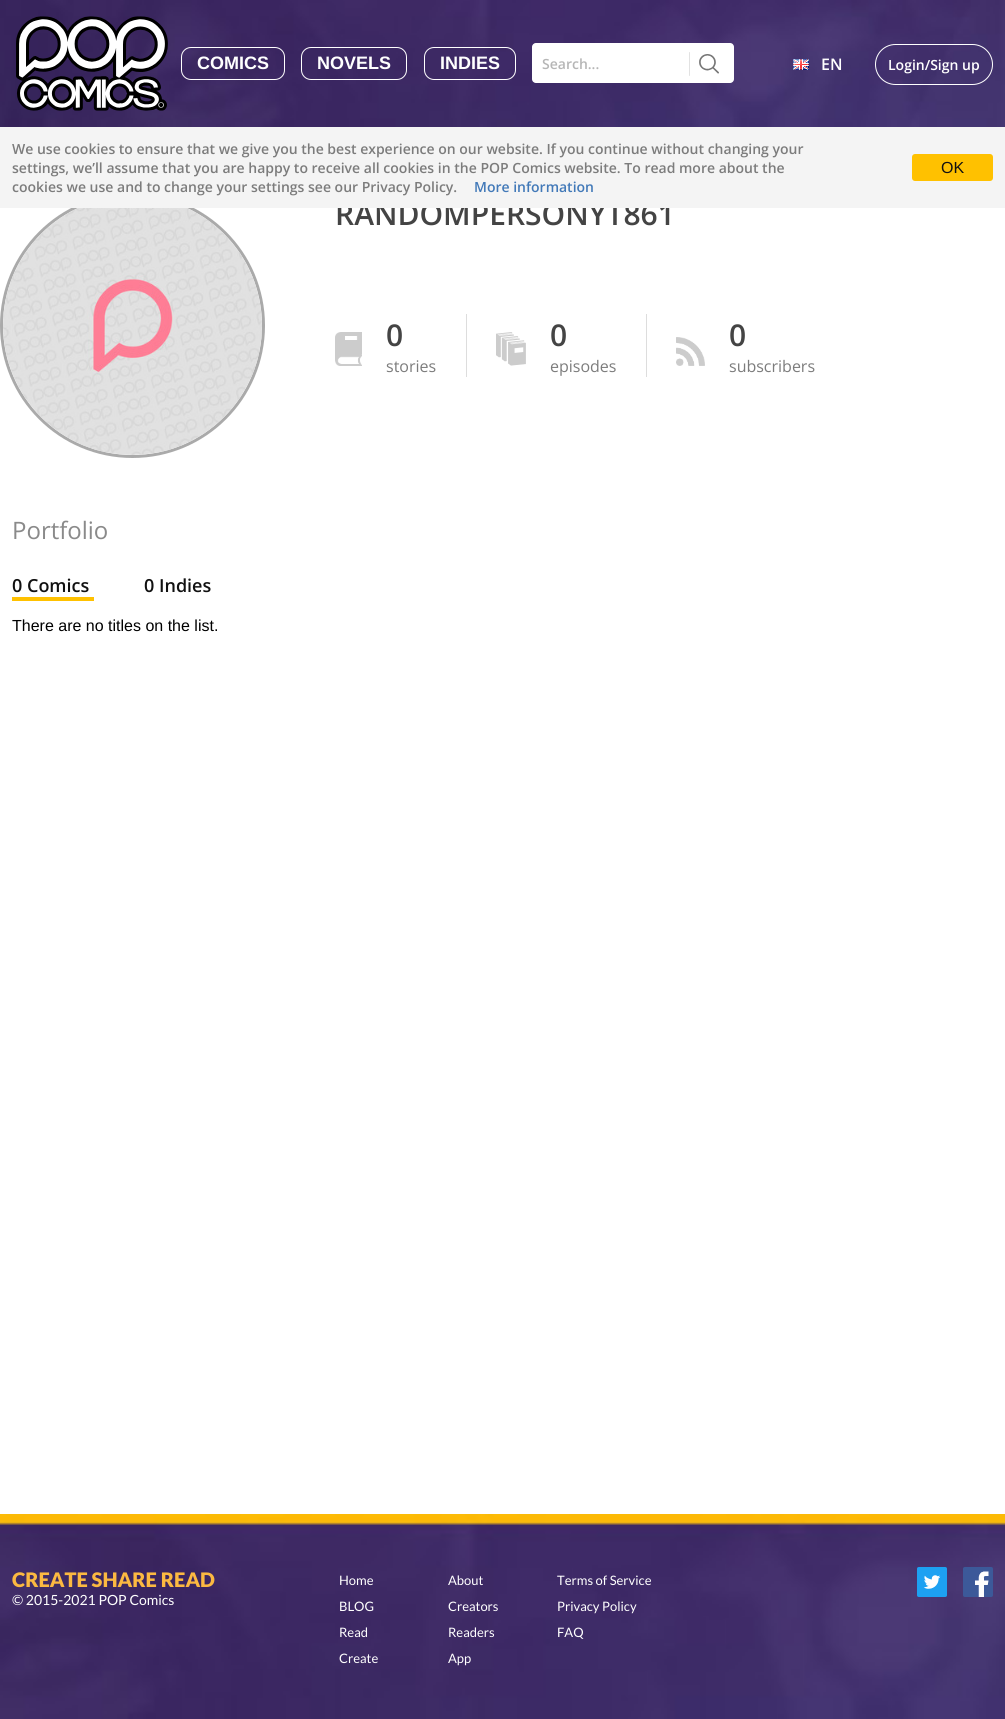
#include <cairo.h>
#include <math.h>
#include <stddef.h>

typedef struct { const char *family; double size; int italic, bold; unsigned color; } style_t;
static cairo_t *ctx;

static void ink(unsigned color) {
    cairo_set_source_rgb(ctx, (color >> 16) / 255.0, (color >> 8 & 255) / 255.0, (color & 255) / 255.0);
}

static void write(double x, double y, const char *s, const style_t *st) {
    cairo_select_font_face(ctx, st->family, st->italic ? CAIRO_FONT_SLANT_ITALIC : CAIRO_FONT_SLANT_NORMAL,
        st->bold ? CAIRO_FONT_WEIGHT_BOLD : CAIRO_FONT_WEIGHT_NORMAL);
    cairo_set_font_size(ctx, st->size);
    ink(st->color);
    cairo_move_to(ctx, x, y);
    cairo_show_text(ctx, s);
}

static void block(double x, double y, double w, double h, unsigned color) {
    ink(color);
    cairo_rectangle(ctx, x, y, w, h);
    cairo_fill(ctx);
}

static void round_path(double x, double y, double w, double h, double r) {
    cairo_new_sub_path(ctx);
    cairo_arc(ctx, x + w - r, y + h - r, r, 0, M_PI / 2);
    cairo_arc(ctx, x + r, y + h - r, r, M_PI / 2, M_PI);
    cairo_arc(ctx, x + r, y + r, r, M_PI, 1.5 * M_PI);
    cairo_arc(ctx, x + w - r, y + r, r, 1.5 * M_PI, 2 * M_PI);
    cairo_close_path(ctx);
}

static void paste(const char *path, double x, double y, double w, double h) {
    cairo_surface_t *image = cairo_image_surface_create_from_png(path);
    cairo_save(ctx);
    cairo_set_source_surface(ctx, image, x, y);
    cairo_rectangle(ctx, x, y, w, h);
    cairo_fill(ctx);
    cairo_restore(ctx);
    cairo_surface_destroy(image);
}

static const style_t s1 = {"Liberation Sans", 18, 0, 1, 0xffffff};
static const style_t s2 = {"Open Sans SemiBold", 14, 0, 0, 0xb6b6b6};
static const style_t s3 = {"Open Sans SemiBold", 16, 0, 0, 0xffffff};
static const style_t s4 = {"Open Sans SemiBold", 14, 0, 0, 0xffffff};
static const style_t s5 = {"Open Sans SemiBold", 30, 0, 0, 0x444444};
static const style_t s6 = {"Open Sans SemiBold", 14, 0, 0, 0x7c7c7c};
static const style_t s7 = {"Open Sans SemiBold", 14, 0, 0, 0x4279b8};
static const style_t s8 = {"Liberation Sans", 16, 0, 0, 0x111111};
static const style_t s9 = {"Open Sans", 16, 0, 0, 0x7c7c7c};
static const style_t s10 = {"Open Sans", 24, 0, 0, 0x8a8a8a};
static const style_t s11 = {"Open Sans SemiBold", 18, 0, 0, 0x111111};
static const style_t s12 = {"Liberation Sans", 16, 0, 0, 0x000000};
static const style_t s13 = {"Lato Black", 20, 0, 0, 0xfcb941};
static const style_t s14 = {"Lato", 14, 0, 0, 0xffffff};
static const style_t s15 = {"Lato", 13, 0, 0, 0xffffff};

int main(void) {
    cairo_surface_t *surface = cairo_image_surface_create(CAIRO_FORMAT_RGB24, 1005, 1719);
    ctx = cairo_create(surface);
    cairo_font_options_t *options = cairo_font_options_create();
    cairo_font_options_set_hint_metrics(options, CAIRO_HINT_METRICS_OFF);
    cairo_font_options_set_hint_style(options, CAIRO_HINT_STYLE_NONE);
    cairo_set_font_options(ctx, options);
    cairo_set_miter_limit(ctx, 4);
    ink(0xffffff);
    cairo_paint(ctx);
    paste("pic1.png", 0, 0, 1005, 127);
    paste("pic2.png", 16, 16, 152, 95);
    round_path(181.5, 47.5, 103, 32, 9.5);
    ink(0xffffff);
    cairo_set_line_width(ctx, 1);
    cairo_stroke(ctx);
    write(197, 69, "COMICS", &s1);
    round_path(301.5, 47.5, 105, 32, 9.5);
    cairo_stroke(ctx);
    write(317, 69, "NOVELS", &s1);
    round_path(424.5, 47.5, 91, 32, 9.5);
    cairo_stroke(ctx);
    write(440, 69, "INDIES", &s1);
    round_path(532, 43, 202, 40, 4);
    cairo_fill(ctx);
    write(542, 69, "Search...", &s2);
    paste("pic3.png", 689, 52, 30, 24);
    paste("pic4.png", 793, 59, 16, 11);
    write(821, 70, "EN", &s3);
    round_path(875.5, 44.5, 117, 40, 20);
    cairo_stroke(ctx);
    write(888, 70, "Login/Sign up", &s4);
    cairo_new_path(ctx);
    cairo_arc(ctx, 132.5, 325.5, 131, 0, 2 * M_PI);
    ink(0xaaaaaa);
    cairo_set_line_width(ctx, 3);
    cairo_stroke(ctx);
    write(335, 225, "RANDOMPERSONYT861", &s5);
    block(0, 127, 1005, 81, 0xf4f4f4);
    write(12, 154, "We use cookies to ensure that we give you the best experience on our website. If you continue without changing your", &s6);
    write(12, 173, "settings, we’ll assume that you are happy to receive all cookies in the POP Comics website. To read more about the", &s6);
    write(12, 192, "cookies we use and to change your settings see our Privacy Policy.", &s6);
    write(474, 192, "More information", &s7);
    ink(0xffc100);
    round_path(912, 154, 81, 27, 3);
    cairo_fill(ctx);
    write(941, 173, "OK", &s8);
    paste("pic5.png", 3, 208, 259, 247);
    block(466, 314, 1, 63, 0xdddddd);
    paste("pic6.png", 335, 332, 27, 34);
    write(386, 346, "0", &s5);
    write(386, 372, "stories", &s9);
    block(646, 314, 1, 63, 0xdddddd);
    paste("pic7.png", 496, 332, 30, 34);
    write(550, 346, "0", &s5);
    write(550, 372, "episodes", &s9);
    paste("pic8.png", 676, 337, 29, 29);
    write(729, 346, "0", &s5);
    write(729, 372, "subscribers", &s9);
    write(12, 539, "Portfolio", &s10);
    write(12, 592, "0 Comics", &s11);
    block(12, 597, 82, 4, 0xffc100);
    write(144, 592, "0 Indies", &s11);
    write(12, 631, "There are no titles on the list.", &s12);
    paste("pic9.png", 0, 1514, 1005, 205);
    write(12, 1587, "CREATE SHARE READ", &s13);
    write(12, 1605, "© 2015-2021 POP Comics", &s14);
    write(339, 1585, "Home", &s15);
    write(339, 1611, "BLOG", &s15);
    write(339, 1637, "Read", &s15);
    write(339, 1663, "Create", &s15);
    write(448, 1585, "About", &s15);
    write(448, 1611, "Creators", &s15);
    write(448, 1637, "Readers", &s15);
    write(448, 1663, "App", &s15);
    write(557, 1585, "Terms of Service", &s15);
    write(557, 1611, "Privacy Policy", &s15);
    write(557, 1637, "FAQ", &s15);
    paste("pic10.png", 917, 1567, 30, 30);
    paste("pic11.png", 963, 1567, 30, 30);
    cairo_surface_write_to_png(surface, "screenshot.png");
    cairo_font_options_destroy(options);
    cairo_destroy(ctx);
    cairo_surface_destroy(surface);
    return 0;
}
